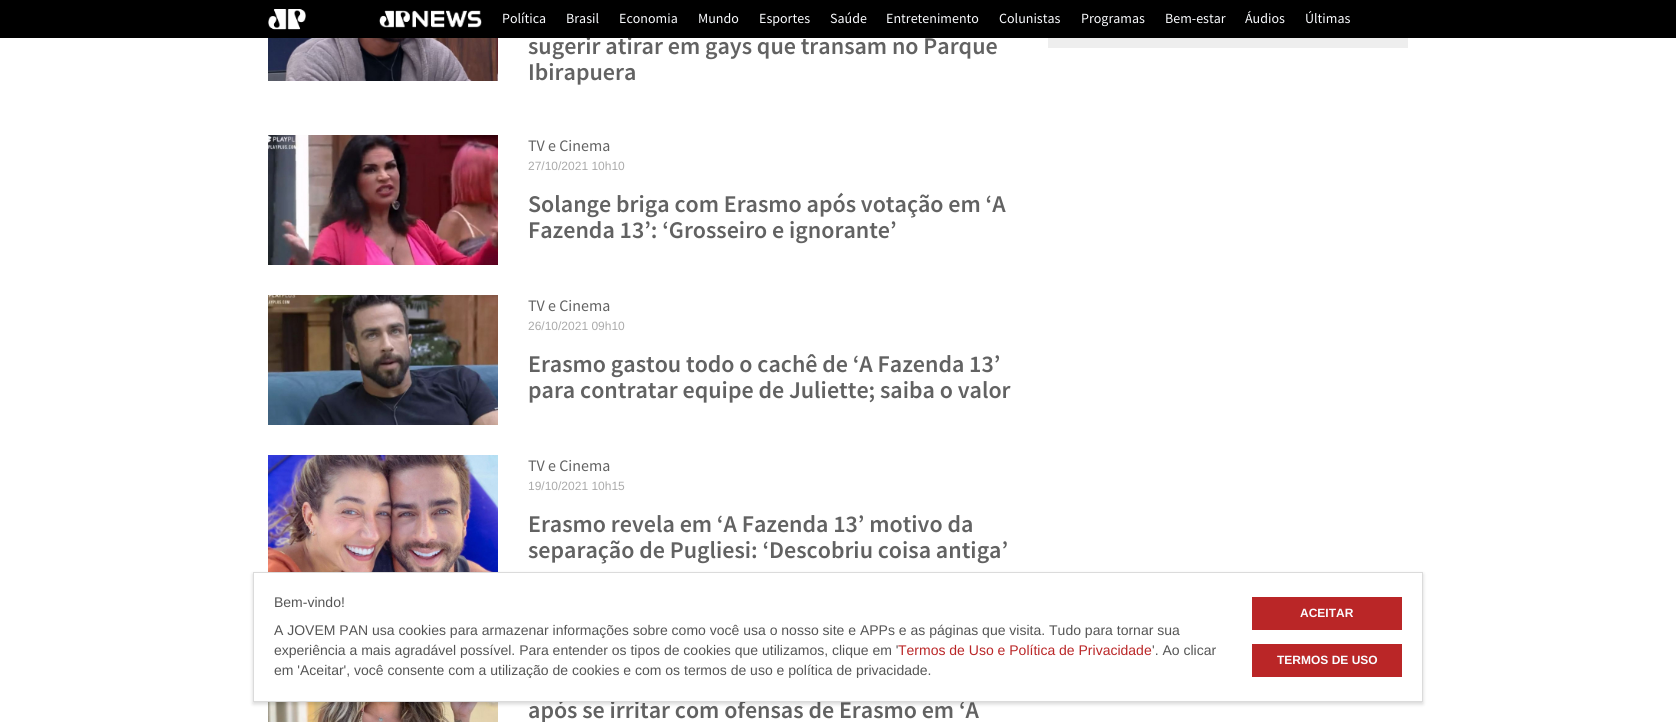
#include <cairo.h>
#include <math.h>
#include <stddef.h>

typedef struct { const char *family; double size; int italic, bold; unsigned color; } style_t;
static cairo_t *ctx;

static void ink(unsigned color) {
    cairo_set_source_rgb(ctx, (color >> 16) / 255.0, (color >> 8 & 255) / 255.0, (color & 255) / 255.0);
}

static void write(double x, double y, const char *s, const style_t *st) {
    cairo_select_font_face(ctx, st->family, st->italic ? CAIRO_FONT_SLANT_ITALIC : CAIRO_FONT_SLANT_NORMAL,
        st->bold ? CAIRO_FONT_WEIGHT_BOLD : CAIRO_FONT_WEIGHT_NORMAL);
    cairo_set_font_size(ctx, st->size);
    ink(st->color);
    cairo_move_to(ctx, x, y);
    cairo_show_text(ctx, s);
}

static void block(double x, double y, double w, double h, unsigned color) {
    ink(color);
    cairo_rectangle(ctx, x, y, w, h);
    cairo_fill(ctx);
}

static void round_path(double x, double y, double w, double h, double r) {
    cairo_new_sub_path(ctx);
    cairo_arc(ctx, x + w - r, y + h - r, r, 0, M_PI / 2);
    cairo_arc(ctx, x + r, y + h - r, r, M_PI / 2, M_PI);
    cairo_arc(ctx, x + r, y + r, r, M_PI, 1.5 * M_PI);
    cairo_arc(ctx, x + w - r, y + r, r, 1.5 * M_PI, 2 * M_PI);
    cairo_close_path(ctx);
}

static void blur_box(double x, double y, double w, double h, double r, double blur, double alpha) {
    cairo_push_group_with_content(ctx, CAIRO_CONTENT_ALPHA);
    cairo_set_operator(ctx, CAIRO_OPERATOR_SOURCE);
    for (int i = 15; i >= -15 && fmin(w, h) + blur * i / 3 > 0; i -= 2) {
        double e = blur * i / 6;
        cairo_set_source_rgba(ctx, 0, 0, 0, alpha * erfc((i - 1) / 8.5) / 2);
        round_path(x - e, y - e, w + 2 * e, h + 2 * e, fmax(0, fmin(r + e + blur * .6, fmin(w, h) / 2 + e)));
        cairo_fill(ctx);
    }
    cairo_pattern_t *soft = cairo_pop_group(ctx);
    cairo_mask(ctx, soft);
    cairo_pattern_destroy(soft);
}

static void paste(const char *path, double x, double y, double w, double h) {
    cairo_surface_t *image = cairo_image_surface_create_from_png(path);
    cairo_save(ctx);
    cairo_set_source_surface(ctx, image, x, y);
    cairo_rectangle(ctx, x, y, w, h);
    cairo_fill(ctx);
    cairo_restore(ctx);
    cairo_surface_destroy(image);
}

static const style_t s1 = {"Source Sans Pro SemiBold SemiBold", 24, 0, 0, 0x626262};
static const style_t s2 = {"Source Sans Pro", 14, 0, 0, 0xfbfcff};
static const style_t s3 = {"Source Sans Pro", 16, 0, 0, 0x626262};
static const style_t s4 = {"Liberation Sans", 12, 0, 0, 0xaaaaaa};
static const style_t s5 = {"Liberation Sans", 14, 0, 0, 0x555555};
static const style_t s6 = {"Liberation Sans", 14, 0, 0, 0xba2627};
static const style_t s7 = {"Liberation Sans", 12, 0, 1, 0xfbfcff};

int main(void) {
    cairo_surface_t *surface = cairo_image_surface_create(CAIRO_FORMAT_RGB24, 1676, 722);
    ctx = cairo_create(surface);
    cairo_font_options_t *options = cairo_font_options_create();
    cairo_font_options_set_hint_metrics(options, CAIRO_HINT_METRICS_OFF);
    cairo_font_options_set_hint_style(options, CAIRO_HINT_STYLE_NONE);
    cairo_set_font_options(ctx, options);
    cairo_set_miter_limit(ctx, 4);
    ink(0xffffff);
    cairo_paint(ctx);
    write(528, 54, "sugerir atirar em gays que transam no Parque", &s1);
    block(0, 0, 1676, 38, 0x000000);
    paste("pic1.png", 268, 9, 38, 21);
    paste("pic2.png", 379, 10, 103, 18);
    write(502, 23, "Política", &s2);
    write(566, 23, "Brasil", &s2);
    write(619, 23, "Economia", &s2);
    write(698, 23, "Mundo", &s2);
    write(759, 23, "Esportes", &s2);
    write(830, 23, "Saúde", &s2);
    write(886, 23, "Entretenimento", &s2);
    write(999, 23, "Colunistas", &s2);
    write(1081, 23, "Programas", &s2);
    write(1165, 23, "Bem-estar", &s2);
    write(1245, 23, "Áudios", &s2);
    write(1305, 23, "Últimas", &s2);
    paste("pic3.png", 268, 38, 230, 43);
    write(528, 80, "Ibirapuera", &s1);
    paste("pic4.png", 268, 135, 230, 130);
    write(528, 151, "TV e Cinema", &s3);
    write(528, 170, "27/10/2021 10h10", &s4);
    write(528, 212, "Solange briga com Erasmo após votação em ‘A", &s1);
    write(528, 238, "Fazenda 13’: ‘Grosseiro e ignorante’", &s1);
    paste("pic5.png", 268, 295, 230, 130);
    write(528, 311, "TV e Cinema", &s3);
    write(528, 330, "26/10/2021 09h10", &s4);
    write(528, 372, "Erasmo gastou todo o cachê de ‘A Fazenda 13’", &s1);
    write(528, 398, "para contratar equipe de Juliette; saiba o valor", &s1);
    paste("pic6.png", 268, 455, 230, 117);
    write(528, 471, "TV e Cinema", &s3);
    write(528, 490, "19/10/2021 10h15", &s4);
    write(528, 532, "Erasmo revela em ‘A Fazenda 13’ motivo da", &s1);
    write(528, 558, "separação de Pugliesi: ‘Descobriu coisa antiga’", &s1);
    paste("pic7.png", 268, 702, 230, 20);
    write(528, 718, "após se irritar com ofensas de Erasmo em ‘A", &s1);
    block(1048, 38, 360, 10, 0xeeeeee);
    ink(0x000000);
    blur_box(253, 574, 1170, 130, 0, 2, 0.16);
    ink(0xffffff);
    cairo_rectangle(ctx, 253.5, 572.5, 1169, 129);
    cairo_fill_preserve(ctx);
    ink(0xdbdbdb);
    cairo_set_line_width(ctx, 1);
    cairo_stroke(ctx);
    write(274, 607, "Bem-vindo!", &s5);
    write(274, 635, "A JOVEM PAN usa cookies para armazenar informações sobre como você usa o nosso site e APPs e as páginas que visita. Tudo para tornar sua", &s5);
    write(274, 655, "experiência a mais agradável possível. Para entender os tipos de cookies que utilizamos, clique em '", &s5);
    write(898, 655, "Termos de Uso e Política de Privacidade", &s6);
    write(1152, 655, "'. Ao clicar", &s5);
    write(274, 675, "em 'Aceitar', você consente com a utilização de cookies e com os termos de uso e política de privacidade.", &s5);
    block(1252, 597, 150, 33, 0xba2627);
    write(1300, 617, "ACEITAR", &s7);
    block(1252, 644, 150, 33, 0xba2627);
    write(1277, 664, "TERMOS DE USO", &s7);
    cairo_surface_write_to_png(surface, "screenshot.png");
    cairo_font_options_destroy(options);
    cairo_destroy(ctx);
    cairo_surface_destroy(surface);
    return 0;
}
